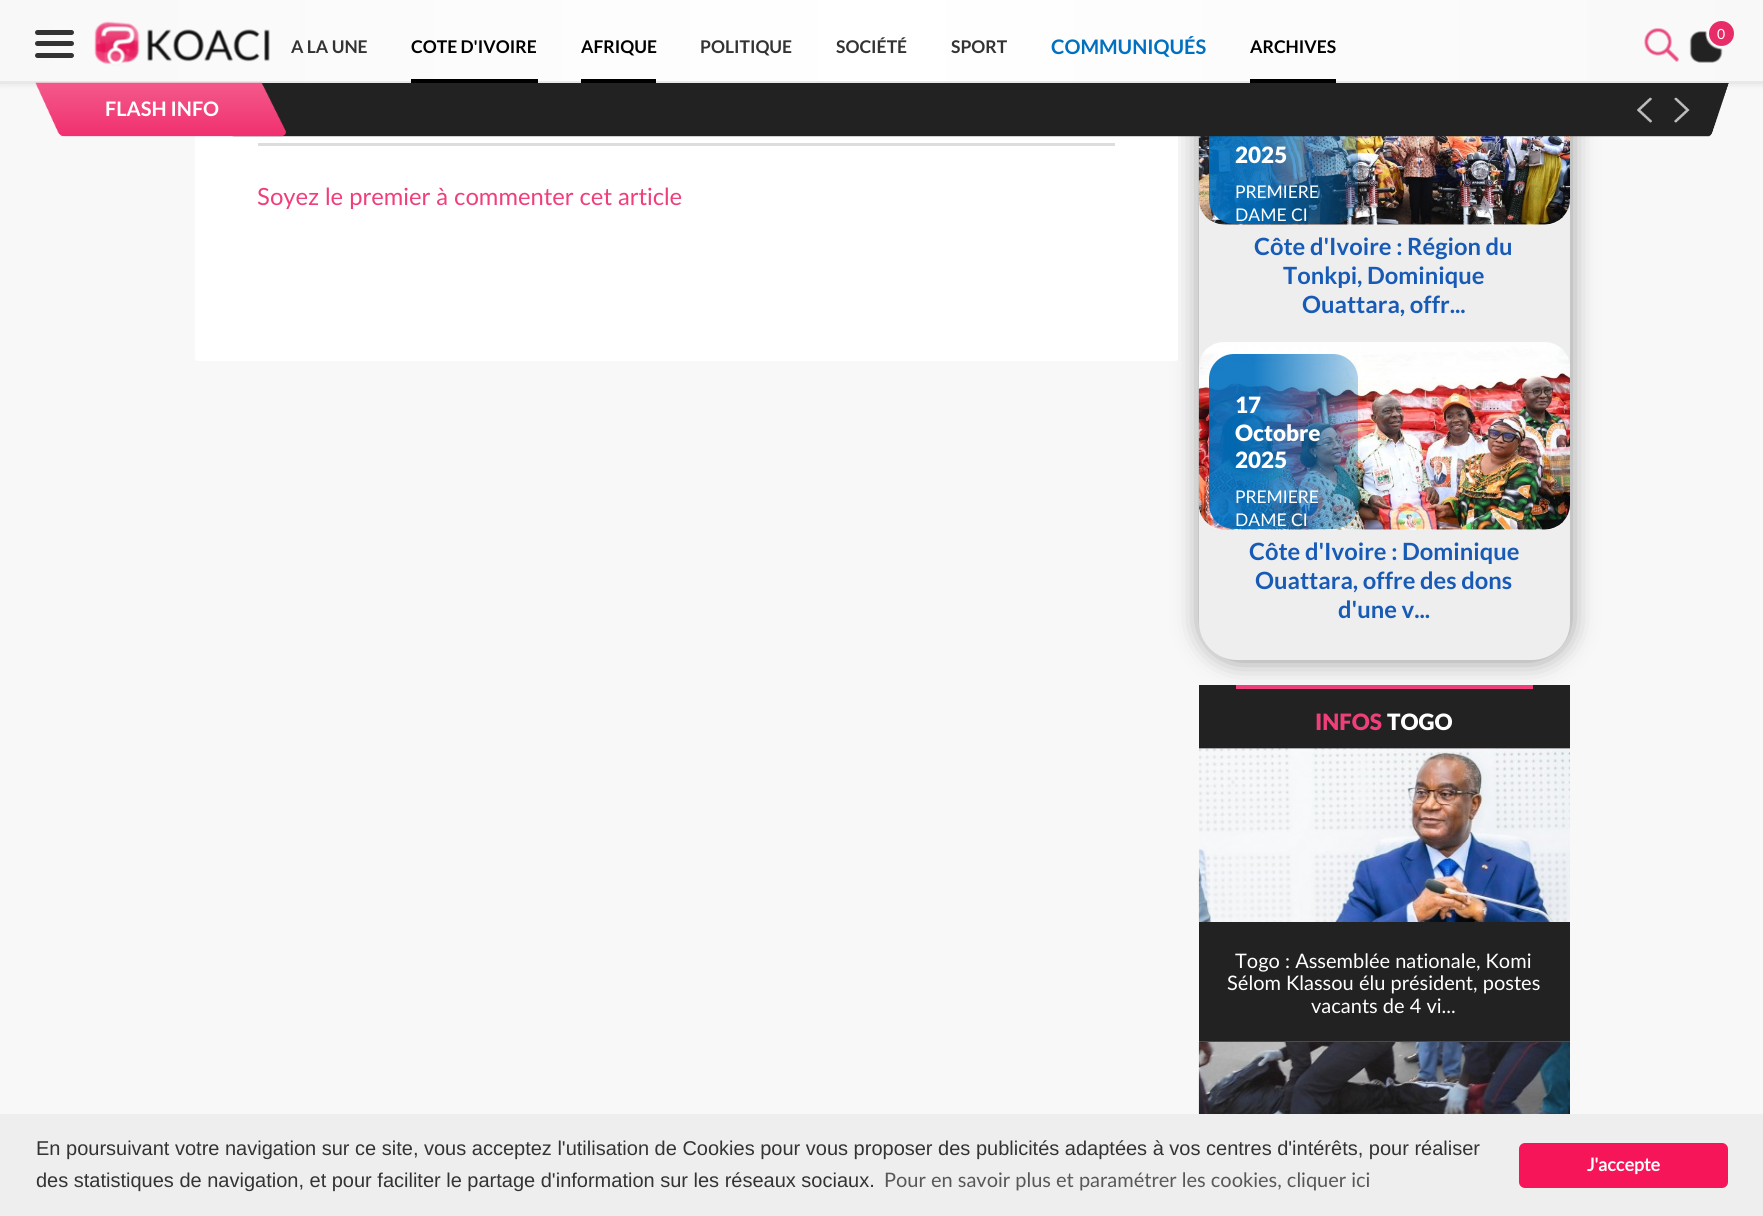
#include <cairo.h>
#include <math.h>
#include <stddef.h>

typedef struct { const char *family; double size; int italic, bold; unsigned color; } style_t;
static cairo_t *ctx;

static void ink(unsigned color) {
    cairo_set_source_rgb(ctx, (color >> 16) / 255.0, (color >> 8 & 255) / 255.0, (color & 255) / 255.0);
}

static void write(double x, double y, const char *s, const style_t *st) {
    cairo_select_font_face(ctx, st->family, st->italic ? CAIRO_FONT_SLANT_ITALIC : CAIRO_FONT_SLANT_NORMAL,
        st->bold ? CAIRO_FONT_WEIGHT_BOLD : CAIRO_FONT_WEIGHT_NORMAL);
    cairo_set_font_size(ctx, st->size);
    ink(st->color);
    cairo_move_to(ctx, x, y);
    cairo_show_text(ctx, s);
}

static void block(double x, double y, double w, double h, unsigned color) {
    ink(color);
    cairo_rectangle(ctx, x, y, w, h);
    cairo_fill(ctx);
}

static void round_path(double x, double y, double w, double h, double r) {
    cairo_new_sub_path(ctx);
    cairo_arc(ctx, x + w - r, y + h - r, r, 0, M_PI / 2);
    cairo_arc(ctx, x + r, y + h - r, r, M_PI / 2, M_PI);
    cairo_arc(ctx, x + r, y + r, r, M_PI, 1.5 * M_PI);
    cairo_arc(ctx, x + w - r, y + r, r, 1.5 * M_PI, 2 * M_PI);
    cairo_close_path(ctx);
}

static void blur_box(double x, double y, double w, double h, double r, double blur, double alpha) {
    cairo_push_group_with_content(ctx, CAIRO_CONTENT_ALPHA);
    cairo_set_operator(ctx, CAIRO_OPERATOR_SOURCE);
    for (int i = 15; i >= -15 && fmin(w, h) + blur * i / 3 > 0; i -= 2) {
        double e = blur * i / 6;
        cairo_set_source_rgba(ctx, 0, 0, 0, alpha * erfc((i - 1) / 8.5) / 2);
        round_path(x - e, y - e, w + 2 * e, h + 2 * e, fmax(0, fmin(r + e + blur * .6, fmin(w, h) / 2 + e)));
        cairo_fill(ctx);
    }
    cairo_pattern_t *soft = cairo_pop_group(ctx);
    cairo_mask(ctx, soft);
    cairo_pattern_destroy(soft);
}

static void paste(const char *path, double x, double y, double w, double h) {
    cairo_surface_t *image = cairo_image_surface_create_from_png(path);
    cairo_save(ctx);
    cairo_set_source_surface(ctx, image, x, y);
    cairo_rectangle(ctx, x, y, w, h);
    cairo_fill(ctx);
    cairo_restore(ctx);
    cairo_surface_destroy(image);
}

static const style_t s1 = {"Lato", 17.5, 0, 1, 0x333333};
static const style_t s2 = {"Lato", 17.5, 0, 1, 0x000000};
static const style_t s3 = {"Lato", 20, 0, 1, 0x0070c0};
static const style_t s4 = {"Lato", 14, 0, 0, 0xffffff};
static const style_t s5 = {"Lato", 20, 0, 1, 0xffffff};
static const style_t s6 = {"Lato", 23.75, 0, 0, 0xf03f78};
static const style_t s7 = {"Lato Black", 22.5, 0, 0, 0xffffff};
static const style_t s8 = {"Lato", 17.5, 0, 0, 0xffffff};
static const style_t s9 = {"Lato", 23.75, 0, 1, 0x185bb7};
static const style_t s10 = {"Lato Black", 22.5, 0, 0, 0xf03f78};
static const style_t s11 = {"Lato", 20, 0, 0, 0xffffff};
static const style_t s12 = {"Liberation Sans", 20, 0, 0, 0x333333};
static const style_t s13 = {"Lato", 20, 0, 0, 0x585858};
static const style_t s14 = {"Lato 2", 18, 0, 1, 0xffffff};

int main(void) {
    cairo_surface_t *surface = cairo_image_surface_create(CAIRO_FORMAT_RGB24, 1763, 1216);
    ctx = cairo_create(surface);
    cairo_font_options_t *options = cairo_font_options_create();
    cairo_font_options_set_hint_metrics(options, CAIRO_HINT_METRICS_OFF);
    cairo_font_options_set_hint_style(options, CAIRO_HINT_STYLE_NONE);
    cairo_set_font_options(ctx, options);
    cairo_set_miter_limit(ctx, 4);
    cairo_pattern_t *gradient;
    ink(0xf8f8f8);
    cairo_paint(ctx);
    ink(0x000000);
    blur_box(1200, -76, 371, 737, 38, 12.5, 0.4);
    ink(0xffffff);
    round_path(195, -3, 983, 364, 2.5);
    cairo_fill(ctx);
    ink(0xeeeeee);
    round_path(1199, -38, 371, 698, 38);
    cairo_fill(ctx);
    ink(0xffffff);
    round_path(1199, 38, 371, 187, 25);
    cairo_fill(ctx);
    paste("pic8.png", 1198, 136, 372, 89);
    gradient = cairo_pattern_create_linear(1209, 136, 1358, 136);
    cairo_pattern_add_color_stop_rgba(gradient, 0.3, 0, 0.439, 0.753, 0.9);
    cairo_pattern_add_color_stop_rgba(gradient, 1, 0, 0.439, 0.753, 0.3);
    cairo_set_source(ctx, gradient);
    cairo_pattern_destroy(gradient);
    round_path(1209, 49, 149, 175, 25);
    cairo_fill(ctx);
    ink(0x000000);
    blur_box(0, 3, 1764, 83, 0, 2.5, 0.06);
    gradient = cairo_pattern_create_linear(0, 41, 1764, 41);
    cairo_pattern_add_color_stop_rgba(gradient, 0, 0.973, 0.973, 0.973, 1);
    cairo_pattern_add_color_stop_rgba(gradient, 0.5, 1, 1, 1, 1);
    cairo_pattern_add_color_stop_rgba(gradient, 1, 0.973, 0.973, 0.973, 1);
    cairo_set_source(ctx, gradient);
    cairo_pattern_destroy(gradient);
    cairo_rectangle(ctx, 0, 0, 1763, 81);
    cairo_fill(ctx);
    block(0, 81, 1763, 3, 0xe8e8e8);
    ink(0x333333);
    round_path(35, 30, 39, 5, 2.5);
    cairo_fill(ctx);
    round_path(35, 41, 39, 5, 2.5);
    cairo_fill(ctx);
    round_path(35, 53, 39, 5, 2.5);
    cairo_fill(ctx);
    paste("pic1.png", 94, 21, 176, 45);
    write(291, 53, "A LA UNE", &s1);
    block(411, 79, 127, 4, 0x000000);
    write(411, 53, "COTE D'IVOIRE", &s2);
    block(581, 79, 75, 4, 0x000000);
    write(581, 53, "AFRIQUE", &s2);
    write(700, 53, "POLITIQUE", &s1);
    write(836, 53, "SOCIÉTÉ", &s1);
    write(951, 53, "SPORT", &s1);
    write(1051, 54, "COMMUNIQUÉS", &s3);
    block(1250, 79, 86, 4, 0x000000);
    write(1250, 53, "ARCHIVES", &s2);
    paste("pic2.png", 1644, 28, 35, 34);
    paste("pic3.png", 1689, 31, 34, 32);
    ink(0xe82c68);
    cairo_arc(ctx, 1721.5, 33.5, 12.5, 0, 2 * M_PI);
    cairo_fill(ctx);
    write(1717, 39, "0", &s4);
    paste("pic4.png", 232, 83, 1497, 54);
    paste("pic5.png", 35, 82, 251, 55);
    write(105, 116, "FLASH INFO", &s5);
    paste("pic6.png", 1637, 97, 15, 26);
    paste("pic7.png", 1674, 97, 16, 26);
    block(258, 143, 857, 3, 0xdddddd);
    write(257, 205, "Soyez le premier à commenter cet article", &s6);
    write(1235, 163, "2025", &s7);
    write(1235, 198, "PREMIERE", &s8);
    write(1235, 221, "DAME CI", &s8);
    write(1254, 255, "Côte d'Ivoire : Région du", &s9);
    write(1283, 284, "Tonkpi, Dominique", &s9);
    write(1302, 313, "Ouattara, offr...", &s9);
    ink(0xffffff);
    round_path(1199, 343, 371, 187, 25);
    cairo_fill(ctx);
    paste("pic9.png", 1198, 342, 372, 188);
    gradient = cairo_pattern_create_linear(1209, 441, 1358, 441);
    cairo_pattern_add_color_stop_rgba(gradient, 0.3, 0, 0.439, 0.753, 0.9);
    cairo_pattern_add_color_stop_rgba(gradient, 1, 0, 0.439, 0.753, 0.3);
    cairo_set_source(ctx, gradient);
    cairo_pattern_destroy(gradient);
    round_path(1209, 354, 149, 175, 25);
    cairo_fill(ctx);
    write(1235, 413, "17", &s7);
    write(1235, 441, "Octobre", &s7);
    write(1235, 468, "2025", &s7);
    write(1235, 503, "PREMIERE", &s8);
    write(1235, 526, "DAME CI", &s8);
    write(1249, 560, "Côte d'Ivoire : Dominique", &s9);
    write(1255, 589, "Ouattara, offre des dons", &s9);
    write(1338, 618, "d'une v...", &s9);
    block(1199, 685, 371, 356, 0x222222);
    block(1236, 685, 297, 4, 0xf03f78);
    write(1315, 730, "INFOS", &s10);
    write(1387, 730, "TOGO", &s7);
    block(1199, 748, 371, 1, 0x4c4c4c);
    paste("pic10.png", 1198, 748, 372, 174);
    write(1235, 968, "Togo : Assemblée nationale, Komi", &s11);
    write(1227, 990, "Sélom Klassou élu président, postes", &s11);
    write(1311, 1013, "vacants de 4 vi...", &s11);
    block(1199, 1041, 371, 1, 0x4c4c4c);
    paste("pic11.png", 1198, 1042, 372, 72);
    block(0, 1114, 1763, 102, 0xeeeeee);
    write(36, 1155, "En poursuivant votre navigation sur ce site, vous acceptez l'utilisation de Cookies pour vous proposer des publicités adaptées à vos centres d'intérêts, pour réaliser", &s12);
    write(36, 1187, "des statistiques de navigation, et pour faciliter le partage d'information sur les réseaux sociaux.", &s12);
    write(884, 1187, "Pour en savoir plus et paramétrer les cookies, cliquer ici", &s13);
    ink(0xf71559);
    round_path(1519, 1143, 209, 45, 6);
    cairo_fill(ctx);
    write(1587, 1171, "J'accepte", &s14);
    cairo_surface_write_to_png(surface, "screenshot.png");
    cairo_font_options_destroy(options);
    cairo_destroy(ctx);
    cairo_surface_destroy(surface);
    return 0;
}
